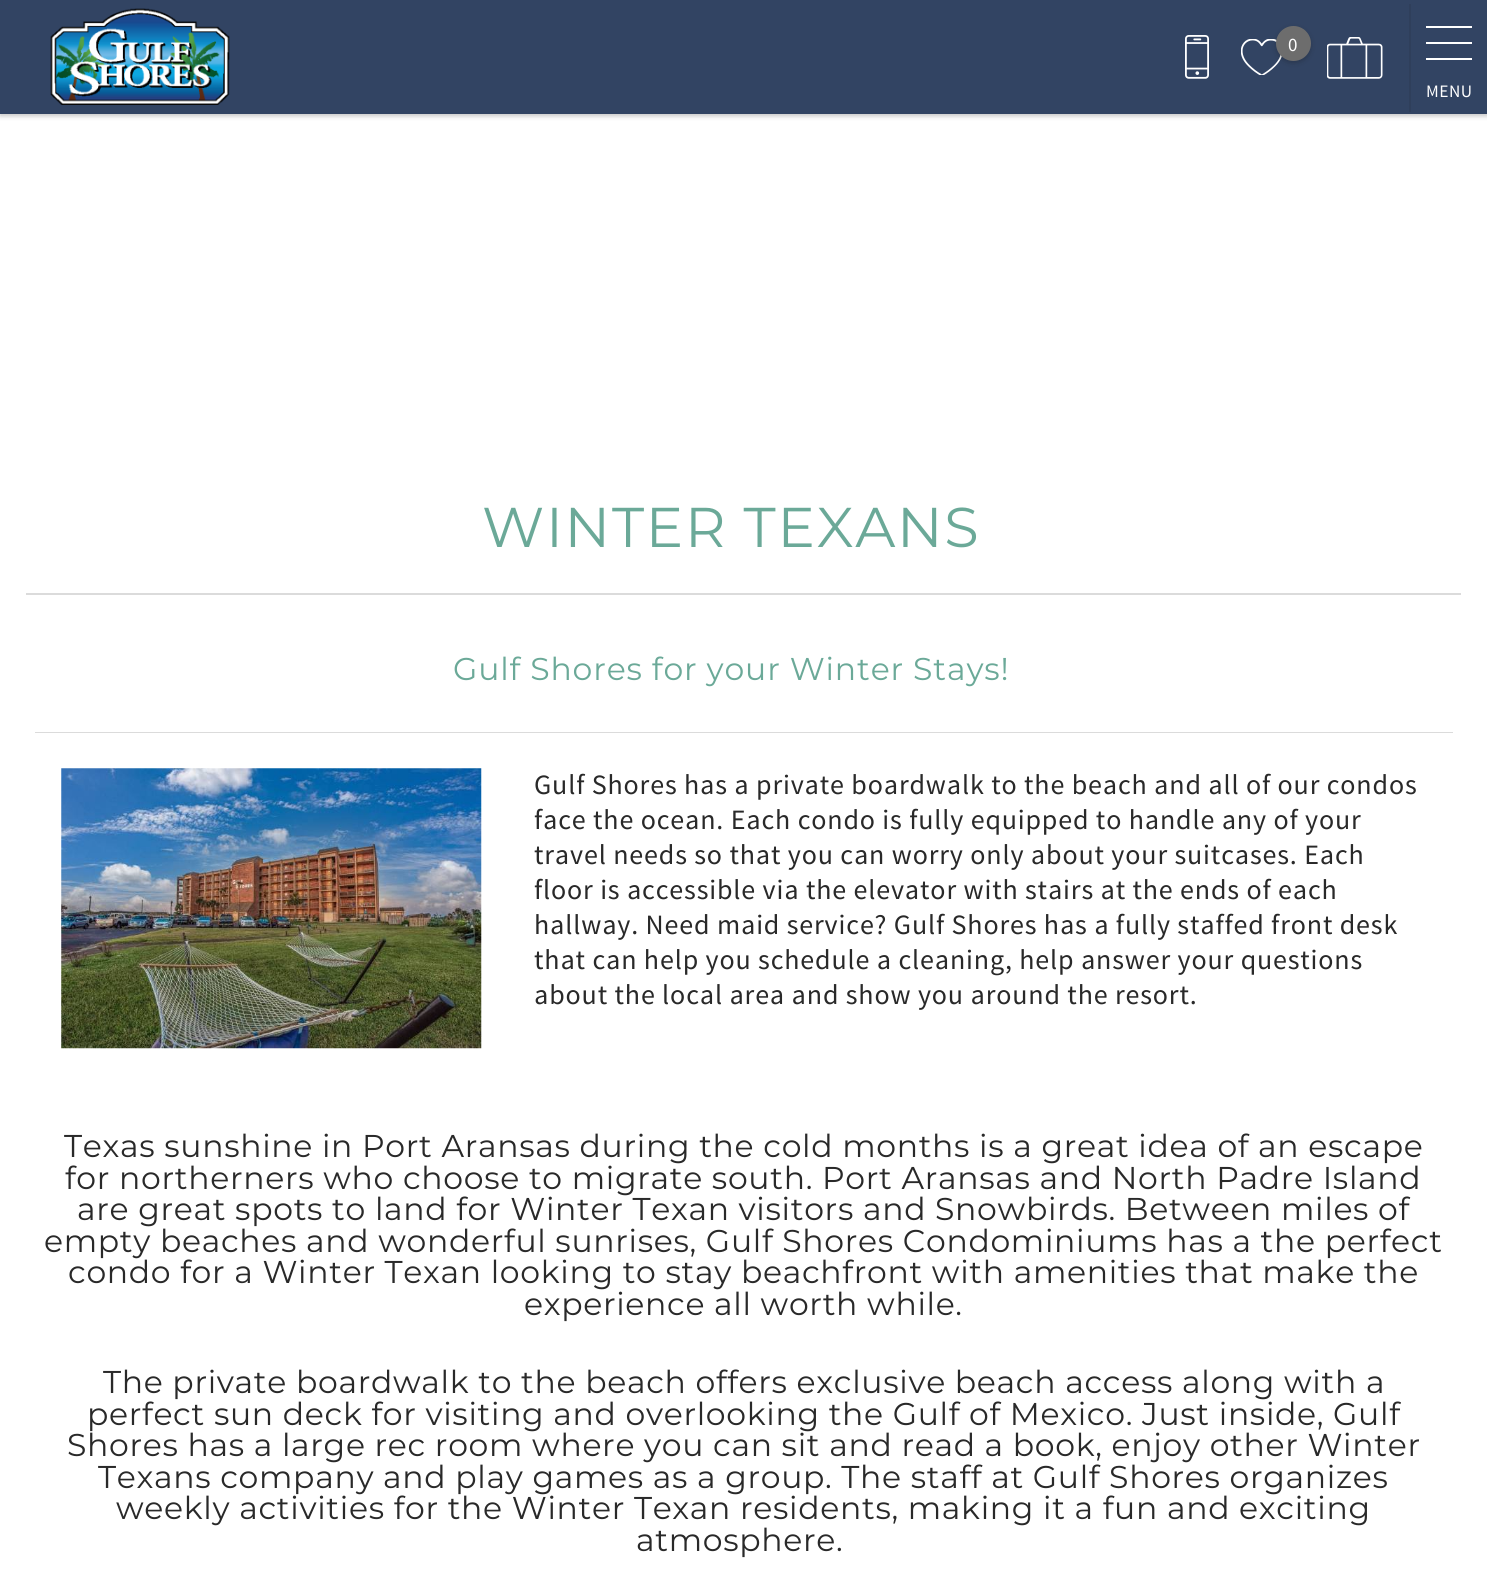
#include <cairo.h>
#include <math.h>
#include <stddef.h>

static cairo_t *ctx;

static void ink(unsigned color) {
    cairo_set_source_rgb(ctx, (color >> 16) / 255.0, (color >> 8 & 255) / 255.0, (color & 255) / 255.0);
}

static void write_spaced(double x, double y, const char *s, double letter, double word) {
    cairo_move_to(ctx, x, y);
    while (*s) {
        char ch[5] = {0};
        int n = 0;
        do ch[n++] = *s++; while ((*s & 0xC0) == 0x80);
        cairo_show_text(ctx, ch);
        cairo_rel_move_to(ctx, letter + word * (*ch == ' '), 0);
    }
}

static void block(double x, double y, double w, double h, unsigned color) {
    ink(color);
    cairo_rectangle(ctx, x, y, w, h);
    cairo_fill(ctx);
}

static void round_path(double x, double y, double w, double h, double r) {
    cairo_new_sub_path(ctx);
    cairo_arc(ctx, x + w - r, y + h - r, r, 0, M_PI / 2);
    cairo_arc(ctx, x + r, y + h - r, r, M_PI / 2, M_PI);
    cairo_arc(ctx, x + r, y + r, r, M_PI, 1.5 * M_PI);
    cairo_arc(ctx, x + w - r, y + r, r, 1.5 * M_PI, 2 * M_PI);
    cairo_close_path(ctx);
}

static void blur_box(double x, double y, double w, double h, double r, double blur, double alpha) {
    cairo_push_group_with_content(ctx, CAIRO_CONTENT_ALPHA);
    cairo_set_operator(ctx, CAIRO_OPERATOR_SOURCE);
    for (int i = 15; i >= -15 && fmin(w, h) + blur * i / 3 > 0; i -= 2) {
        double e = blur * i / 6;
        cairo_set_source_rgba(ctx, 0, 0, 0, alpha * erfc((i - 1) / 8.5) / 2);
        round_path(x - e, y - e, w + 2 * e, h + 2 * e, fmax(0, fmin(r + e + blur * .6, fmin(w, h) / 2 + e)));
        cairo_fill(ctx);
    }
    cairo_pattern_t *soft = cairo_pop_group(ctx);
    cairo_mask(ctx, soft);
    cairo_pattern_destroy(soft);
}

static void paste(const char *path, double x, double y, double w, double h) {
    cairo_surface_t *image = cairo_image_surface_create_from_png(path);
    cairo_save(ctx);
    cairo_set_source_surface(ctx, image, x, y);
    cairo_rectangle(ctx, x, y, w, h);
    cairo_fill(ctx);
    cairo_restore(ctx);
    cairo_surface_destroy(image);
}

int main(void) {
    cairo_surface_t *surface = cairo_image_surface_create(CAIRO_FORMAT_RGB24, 1487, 1579);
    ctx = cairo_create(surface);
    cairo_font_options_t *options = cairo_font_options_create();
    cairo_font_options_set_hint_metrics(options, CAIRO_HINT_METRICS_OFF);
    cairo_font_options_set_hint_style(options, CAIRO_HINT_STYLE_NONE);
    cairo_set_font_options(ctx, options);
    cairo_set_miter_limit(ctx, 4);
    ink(0xffffff);
    cairo_paint(ctx);
    ink(0x111111);
    blur_box(0, 2, 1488, 114, 0, 2.5, 0.25);
    block(0, 0, 1487, 114, 0x324463);
    paste("pic1.png", 50, 8, 180, 97);
    paste("pic2.png", 1185, 35, 24, 44);
    paste("pic3.png", 1241, 39, 41, 36);
    ink(0x111111);
    blur_box(1276, 28, 35, 35, 17.5, 2.5, 0.25);
    ink(0x6d6d6d);
    cairo_arc(ctx, 1293.5, 43.5, 17.5, 0, 2 * M_PI);
    cairo_fill(ctx);
    cairo_select_font_face(ctx, "Source Sans Pro", CAIRO_FONT_SLANT_NORMAL, CAIRO_FONT_WEIGHT_NORMAL);
    cairo_set_font_size(ctx, 19);
    ink(0xffffff);
    write_spaced(1288, 51, "0", 0.85, 0);
    paste("pic4.png", 1327, 37, 56, 42);
    block(1409, 4, 2, 108, 0x2f3f5b);
    block(1426, 42, 46, 2, 0xffffff);
    block(1426, 26, 46, 2, 0xffffff);
    block(1426, 58, 46, 2, 0xffffff);
    cairo_set_font_size(ctx, 17.5);
    write_spaced(1426, 97, "MENU", 0.5, 0);
    cairo_select_font_face(ctx, "Montserrat", CAIRO_FONT_SLANT_NORMAL, CAIRO_FONT_WEIGHT_NORMAL);
    cairo_set_font_size(ctx, 56);
    ink(0x6ba998);
    write_spaced(482, 547, "WINTER TEXANS", 1.75, 0);
    block(26, 593, 1435, 2, 0xdbdbdb);
    block(35, 732, 1418, 1, 0xdbdbdb);
    cairo_set_font_size(ctx, 31.5);
    ink(0x6ba998);
    write_spaced(453, 680, "Gulf Shores for your Winter Stays!", 0.85, 0);
    paste("pic5.png", 61, 768, 421, 281);
    cairo_select_font_face(ctx, "Source Sans Pro", CAIRO_FONT_SLANT_NORMAL, CAIRO_FONT_WEIGHT_NORMAL);
    cairo_set_font_size(ctx, 28);
    ink(0x292929);
    write_spaced(534, 794, "Gulf Shores has a private boardwalk to the beach and all of our condos", 0.85, 0);
    write_spaced(534, 829, "face the ocean. Each condo is fully equipped to handle any of your", 0.85, 0);
    write_spaced(534, 864, "travel needs so that you can worry only about your suitcases. Each", 0.85, 0);
    write_spaced(534, 899, "floor is accessible via the elevator with stairs at the ends of each", 0.85, 0);
    write_spaced(534, 934, "hallway. Need maid service? Gulf Shores has a fully staffed front desk", 0.85, 0);
    write_spaced(534, 969, "that can help you schedule a cleaning, help answer your questions", 0.85, 0);
    write_spaced(534, 1004, "about the local area and show you around the resort.", 0.85, 0);
    cairo_select_font_face(ctx, "Montserrat", CAIRO_FONT_SLANT_NORMAL, CAIRO_FONT_WEIGHT_NORMAL);
    cairo_set_font_size(ctx, 31.5);
    write_spaced(64, 1157, "Texas sunshine in Port Aransas during the cold months is a great idea of an escape", 0.68, 0);
    write_spaced(65, 1189, "for northerners who choose to migrate south. Port Aransas and North Padre Island", 0.68, 0);
    write_spaced(77, 1220, "are great spots to land for Winter Texan visitors and Snowbirds. Between miles of", 0.68, 0);
    write_spaced(44, 1252, "empty beaches and wonderful sunrises, Gulf Shores Condominiums has a the perfect", 0.68, 0);
    write_spaced(68, 1283, "condo for a Winter Texan looking to stay beachfront with amenities that make the", 0.68, 0);
    write_spaced(524, 1315, "experience all worth while.", 0.68, 0);
    write_spaced(103, 1393, "The private boardwalk to the beach offers exclusive beach access along with a", 0.68, 0);
    write_spaced(87, 1425, "perfect sun deck for visiting and overlooking the Gulf of Mexico. Just inside, Gulf", 0.68, 0);
    write_spaced(67, 1456, "Shores has a large rec room where you can sit and read a book, enjoy other Winter", 0.68, 0);
    write_spaced(98, 1488, "Texans company and play games as a group. The staff at Gulf Shores organizes", 0.68, 0);
    write_spaced(116, 1519, "weekly activities for the Winter Texan residents, making it a fun and exciting", 0.68, 0);
    write_spaced(636, 1551, "atmosphere.", 0.68, 0);
    cairo_surface_write_to_png(surface, "screenshot.png");
    cairo_font_options_destroy(options);
    cairo_destroy(ctx);
    cairo_surface_destroy(surface);
    return 0;
}
